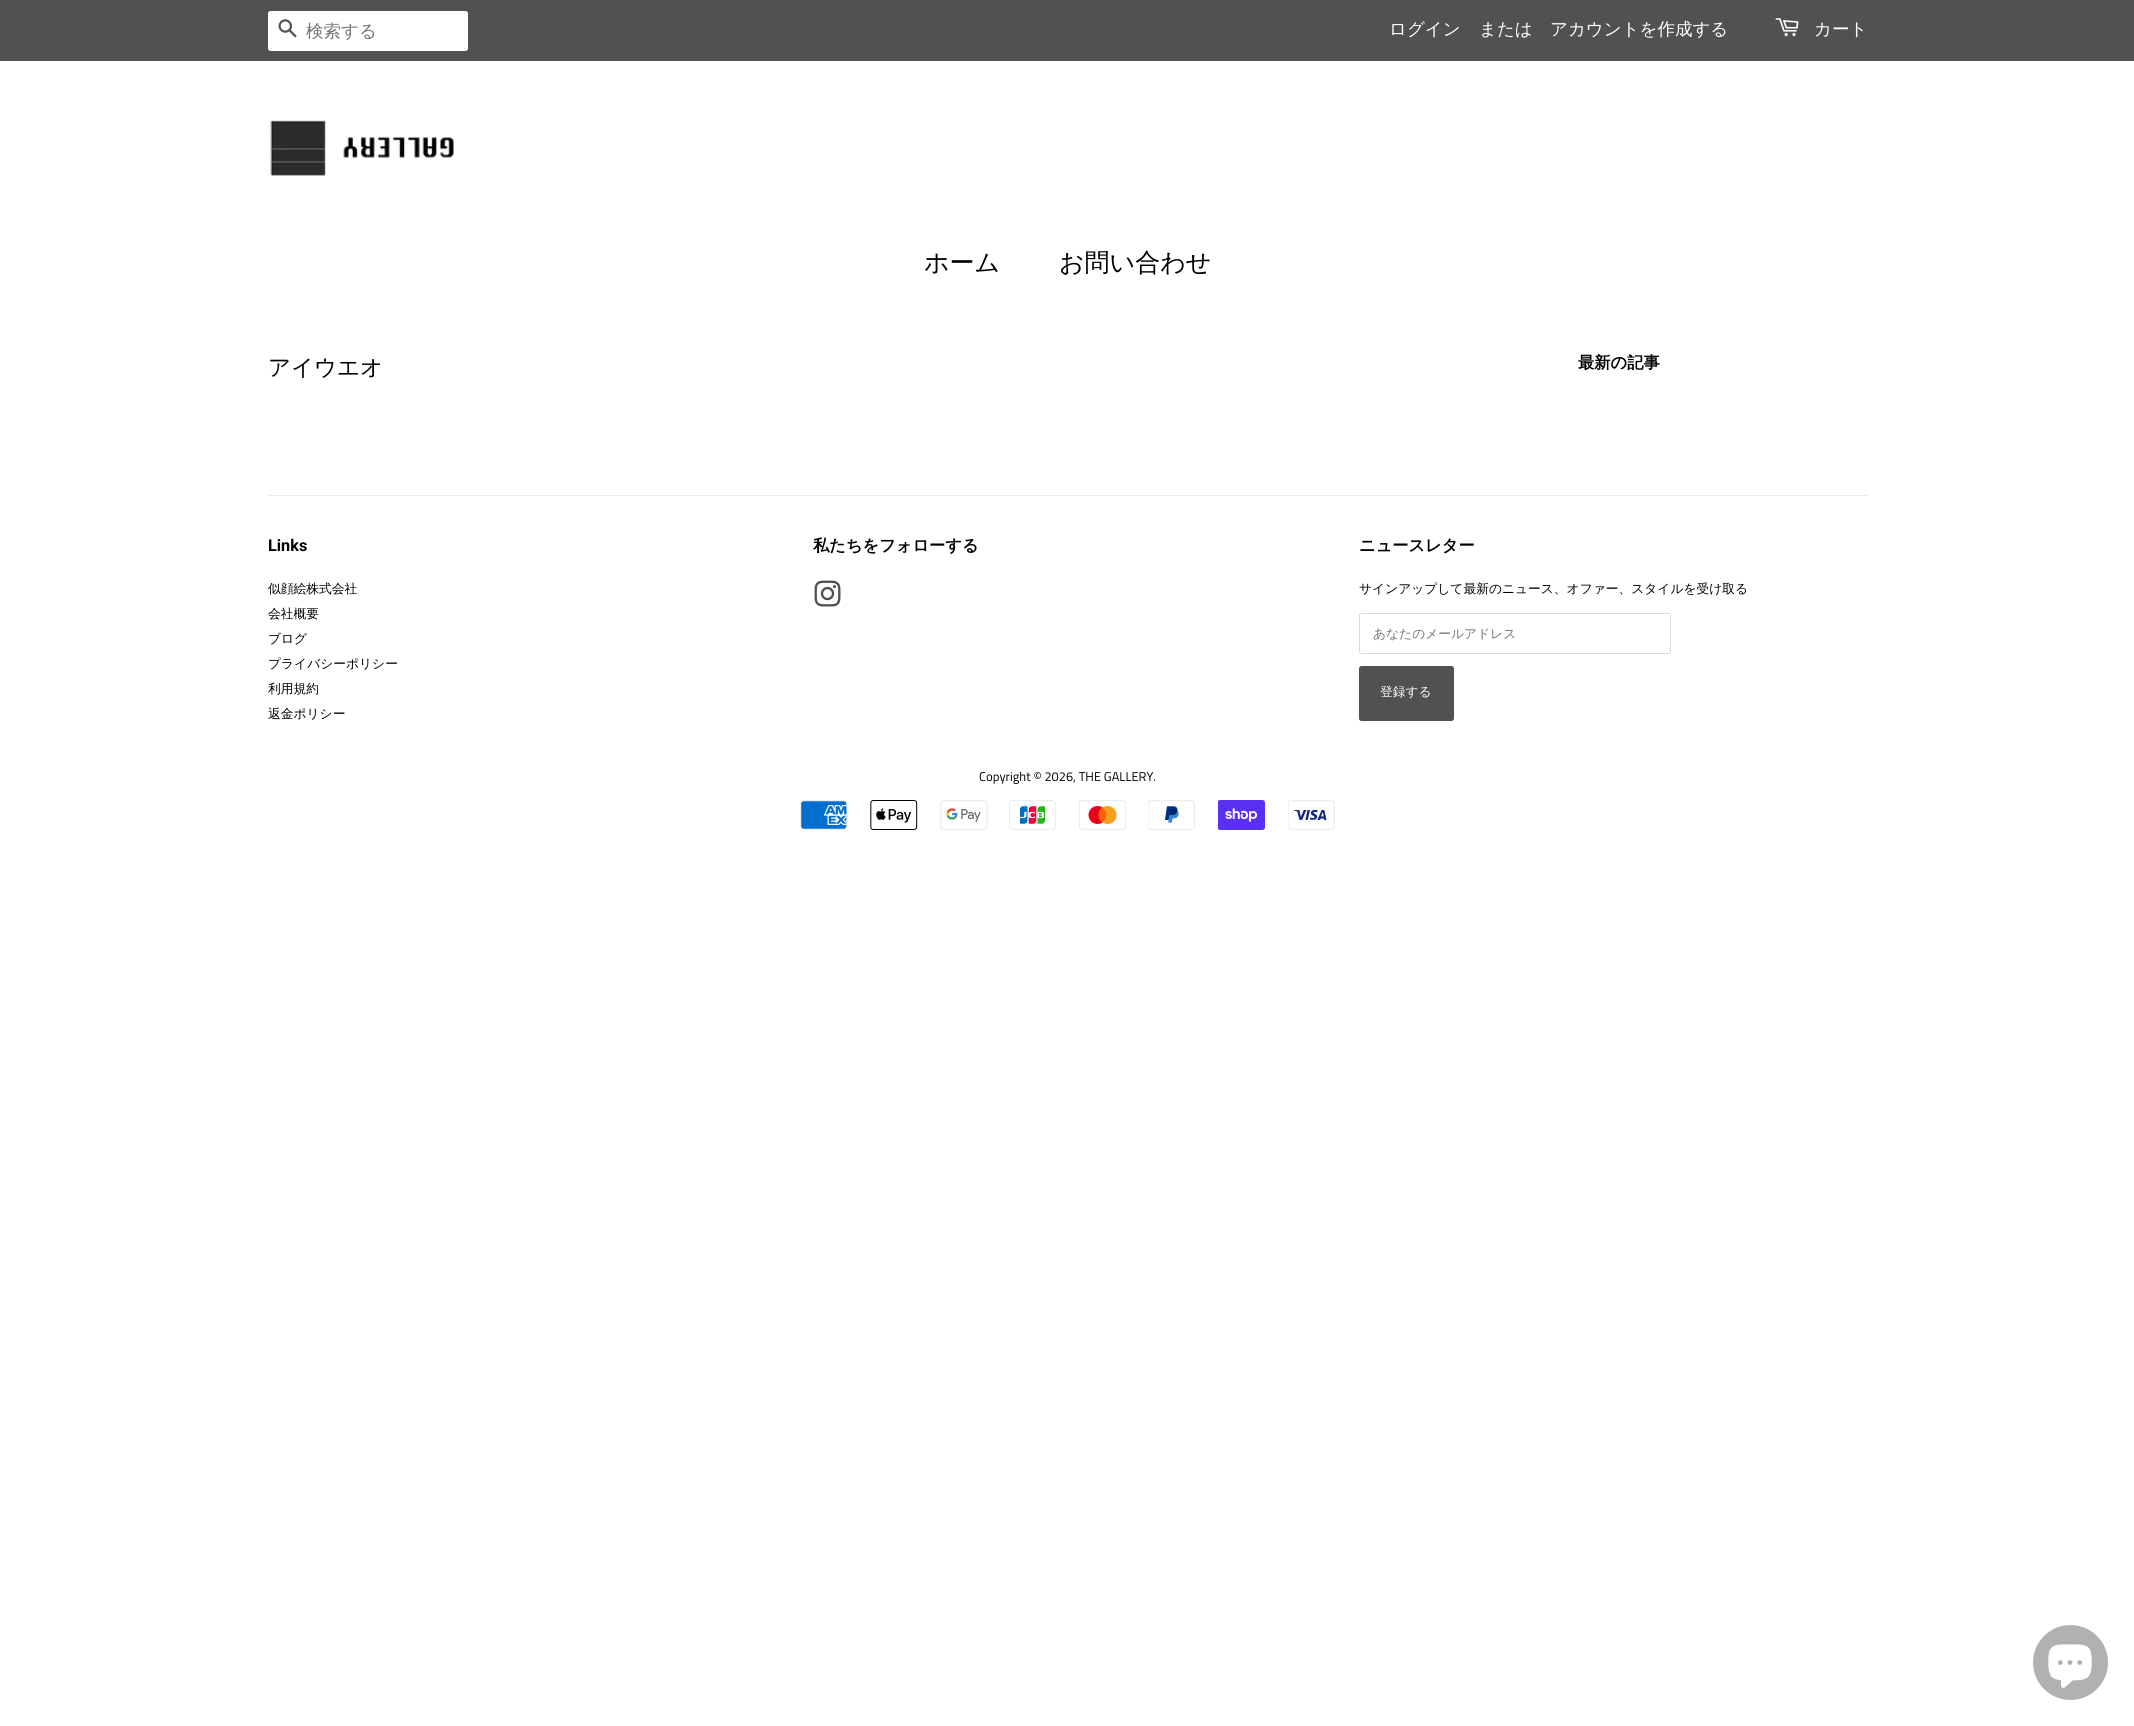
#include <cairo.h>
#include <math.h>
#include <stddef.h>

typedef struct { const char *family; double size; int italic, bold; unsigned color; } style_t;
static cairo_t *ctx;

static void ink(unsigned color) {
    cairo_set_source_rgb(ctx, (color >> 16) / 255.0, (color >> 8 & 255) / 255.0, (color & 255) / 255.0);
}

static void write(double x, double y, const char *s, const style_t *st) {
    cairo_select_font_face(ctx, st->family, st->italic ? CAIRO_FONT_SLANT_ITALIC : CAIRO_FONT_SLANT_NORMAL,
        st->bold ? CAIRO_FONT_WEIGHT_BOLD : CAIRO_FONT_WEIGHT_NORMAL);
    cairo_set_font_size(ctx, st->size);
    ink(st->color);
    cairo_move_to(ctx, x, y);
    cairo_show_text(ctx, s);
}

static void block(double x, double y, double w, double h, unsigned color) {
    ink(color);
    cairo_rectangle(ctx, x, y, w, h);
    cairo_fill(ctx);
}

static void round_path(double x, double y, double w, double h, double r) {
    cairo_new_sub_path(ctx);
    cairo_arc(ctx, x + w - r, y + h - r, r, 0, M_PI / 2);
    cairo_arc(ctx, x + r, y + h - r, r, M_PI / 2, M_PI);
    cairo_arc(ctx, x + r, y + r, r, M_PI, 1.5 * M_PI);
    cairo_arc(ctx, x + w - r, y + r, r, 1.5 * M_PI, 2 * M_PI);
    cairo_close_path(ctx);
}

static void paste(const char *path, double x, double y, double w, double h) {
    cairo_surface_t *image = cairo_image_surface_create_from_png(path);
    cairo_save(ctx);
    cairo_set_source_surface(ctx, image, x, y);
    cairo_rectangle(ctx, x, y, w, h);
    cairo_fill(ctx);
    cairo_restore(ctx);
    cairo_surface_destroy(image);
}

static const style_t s1 = {"WenQuanYi Zen Hei Medium", 17.5, 0, 0, 0x757575};
static const style_t s2 = {"WenQuanYi Zen Hei Medium", 17.5, 0, 0, 0xffffff};
static const style_t s3 = {"WenQuanYi Zen Hei Medium", 25, 0, 0, 0x000000};
static const style_t s4 = {"WenQuanYi Zen Hei Medium", 22.5, 0, 0, 0x000000};
static const style_t s5 = {"WenQuanYi Zen Hei", 16.25, 0, 1, 0x000000};
static const style_t s6 = {"Roboto", 16.25, 0, 1, 0x000000};
static const style_t s7 = {"WenQuanYi Zen Hei Medium", 12.75, 0, 0, 0x000000};
static const style_t s8 = {"WenQuanYi Zen Hei Medium", 12.75, 0, 0, 0x757575};
static const style_t s9 = {"WenQuanYi Zen Hei Medium", 12.75, 0, 0, 0xffffff};
static const style_t s10 = {"Titillium Web", 12.75, 0, 0, 0x000000};

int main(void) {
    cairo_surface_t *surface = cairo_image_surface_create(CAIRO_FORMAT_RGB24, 2134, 1726);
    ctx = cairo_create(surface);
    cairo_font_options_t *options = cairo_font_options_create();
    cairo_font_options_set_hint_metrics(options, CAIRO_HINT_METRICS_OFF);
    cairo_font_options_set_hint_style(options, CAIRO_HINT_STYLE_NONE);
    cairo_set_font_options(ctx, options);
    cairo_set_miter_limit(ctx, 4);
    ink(0xffffff);
    cairo_paint(ctx);
    block(0, 0, 2134, 61, 0x515151);
    ink(0xffffff);
    round_path(268, 11, 200, 40, 2.5);
    cairo_fill(ctx);
    paste("pic1.png", 278, 19, 19, 19);
    write(306, 37, "検索する", &s1);
    write(1389, 35, "ログイン", &s2);
    write(1479, 35, "または", &s2);
    write(1550, 35, "アカウントを作成する", &s2);
    paste("pic2.png", 1775, 18, 24, 19);
    write(1814, 35, "カート", &s2);
    paste("pic3.png", 267, 120, 187, 56);
    write(924, 271, "ホーム", &s3);
    write(1059, 271, "お問い合わせ", &s3);
    write(268, 375, "アイウエオ", &s4);
    write(1578, 368, "最新の記事", &s5);
    block(268, 495, 1600, 1, 0xebebeb);
    write(268, 551, "Links", &s6);
    write(268, 593, "似顔絵株式会社", &s7);
    write(268, 618, "会社概要", &s7);
    write(268, 643, "ブログ", &s7);
    write(268, 668, "プライバシーポリシー", &s7);
    write(268, 693, "利用規約", &s7);
    write(268, 718, "返金ポリシー", &s7);
    write(813, 551, "私たちをフォローする", &s5);
    paste("pic4.png", 814, 580, 27, 27);
    write(1359, 551, "ニュースレター", &s5);
    write(1359, 593, "サインアップして最新のニュース、オファー、スタイルを受け取る", &s7);
    round_path(1359.5, 613.5, 311, 40, 2);
    ink(0xd9d9d9);
    cairo_set_line_width(ctx, 1);
    cairo_stroke(ctx);
    write(1373, 638, "あなたのメールアドレス", &s8);
    ink(0x515151);
    round_path(1359, 666, 95, 55, 2.5);
    cairo_fill(ctx);
    write(1380, 696, "登録する", &s9);
    write(979, 781, "Copyright © 2026, THE GALLERY.", &s10);
    paste("pic5.png", 800, 800, 48, 30);
    paste("pic6.png", 870, 800, 48, 30);
    paste("pic7.png", 940, 800, 48, 30);
    paste("pic8.png", 1009, 800, 47, 30);
    paste("pic9.png", 1079, 800, 47, 30);
    paste("pic10.png", 1148, 800, 47, 30);
    paste("pic11.png", 1218, 800, 47, 30);
    paste("pic12.png", 1288, 800, 47, 30);
    ink(0xb1b1b1);
    cairo_arc(ctx, 2070.5, 1662.5, 37.5, 0, 2 * M_PI);
    cairo_fill(ctx);
    paste("pic13.png", 2048, 1644, 44, 44);
    cairo_surface_write_to_png(surface, "screenshot.png");
    cairo_font_options_destroy(options);
    cairo_destroy(ctx);
    cairo_surface_destroy(surface);
    return 0;
}
